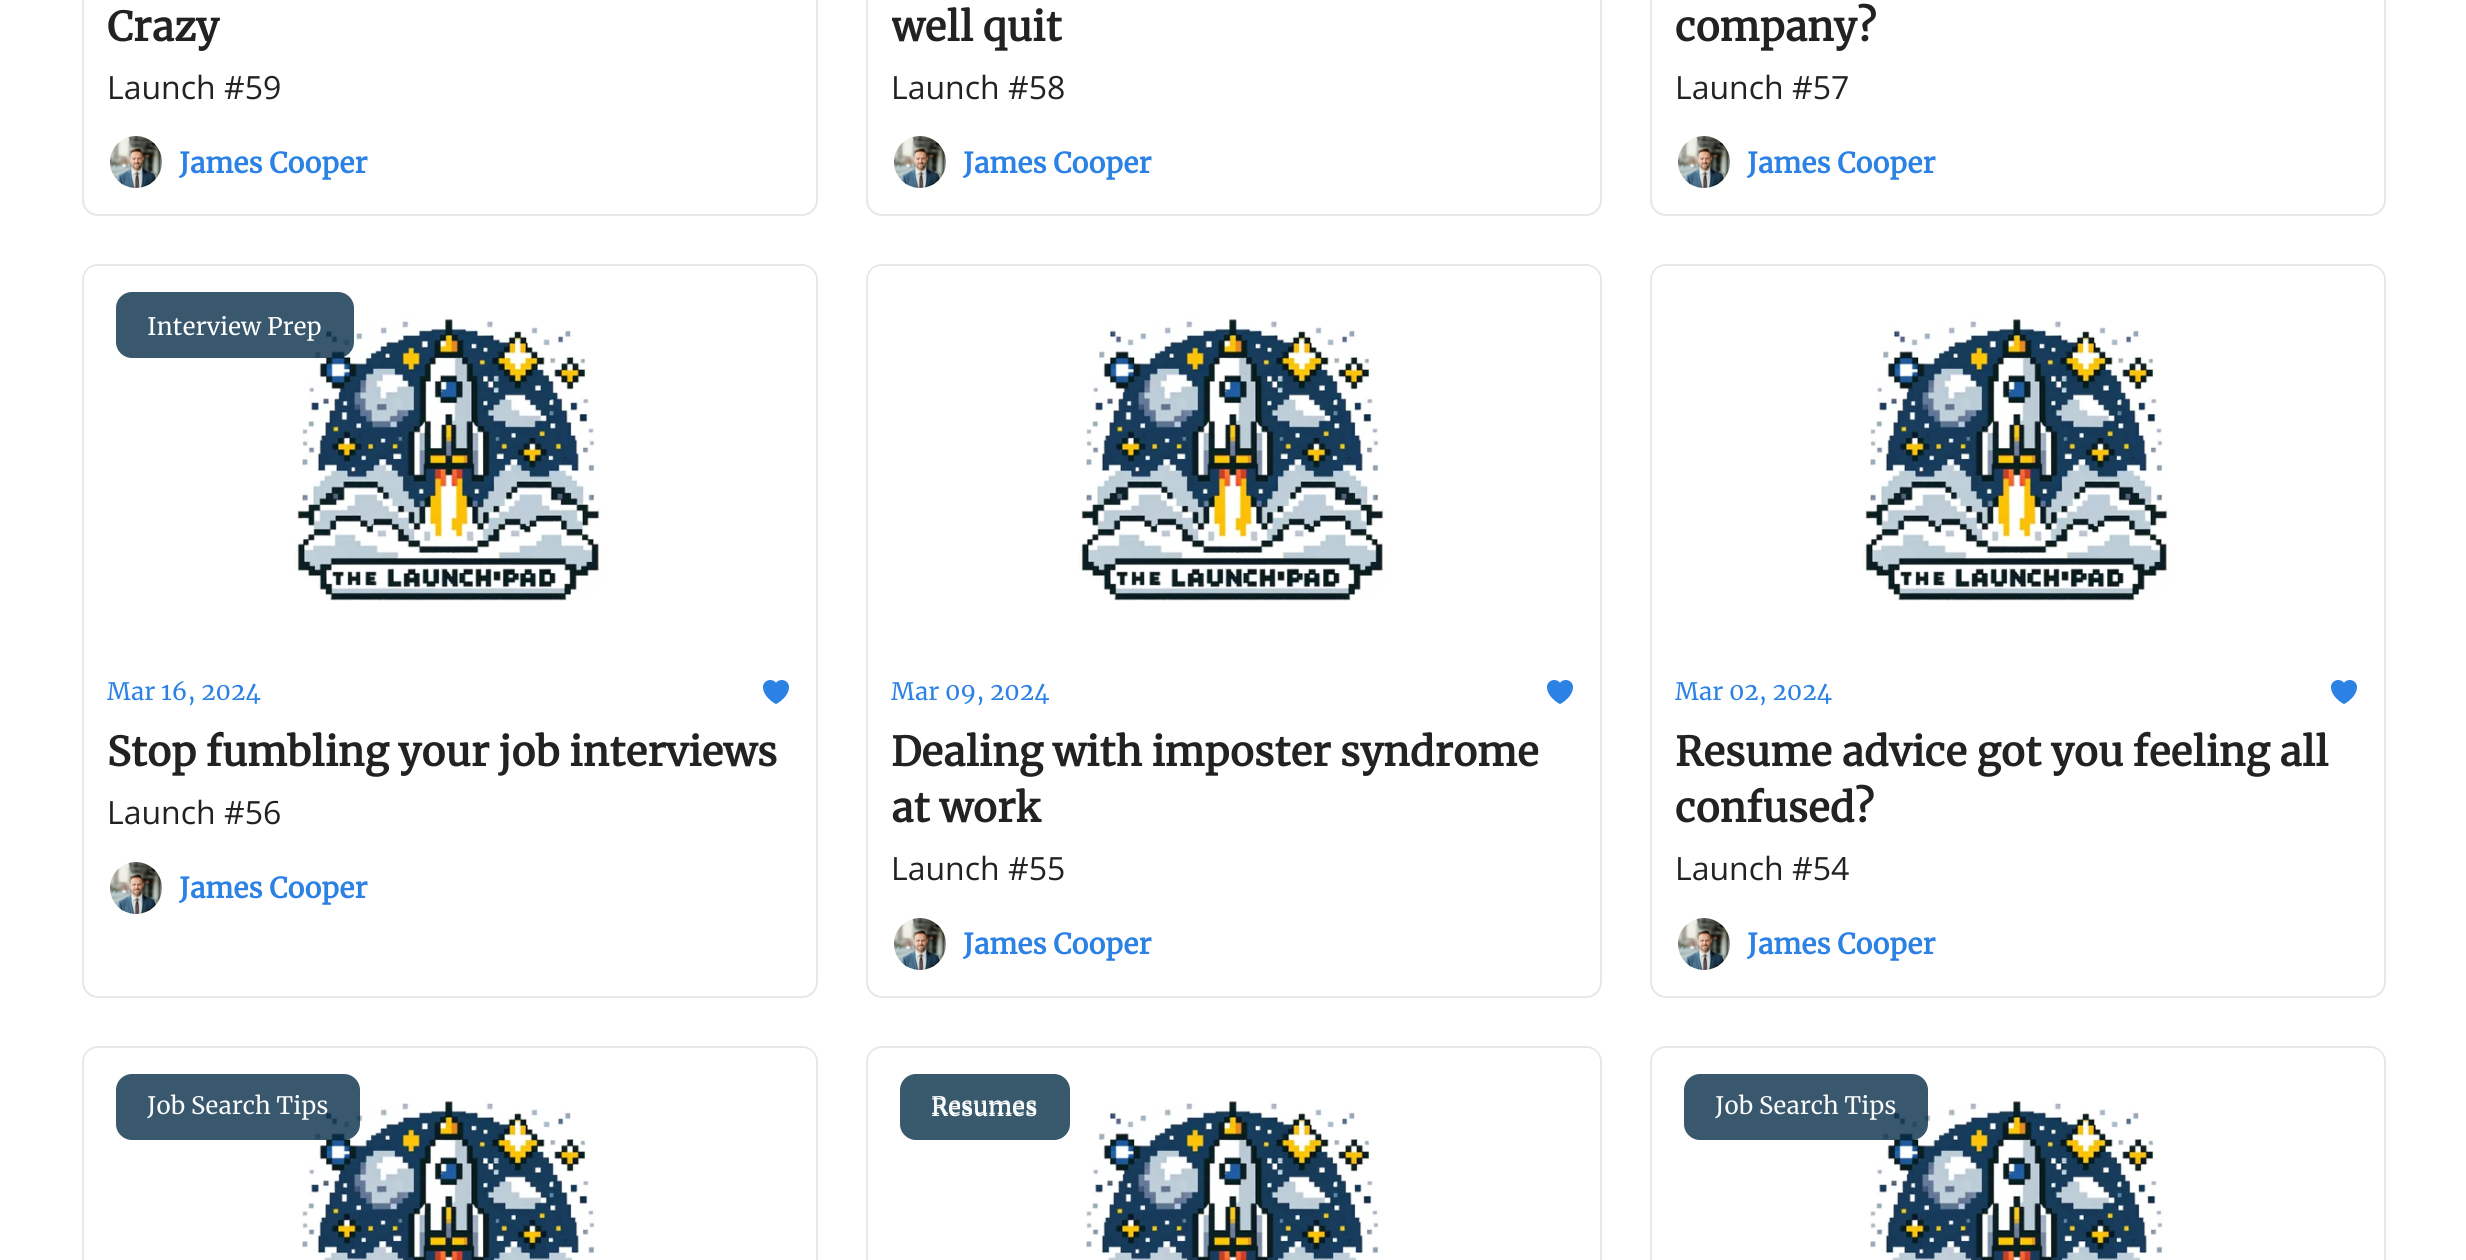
#include <cairo.h>
#include <math.h>
#include <stddef.h>

typedef struct { const char *family; double size; int italic, bold; unsigned color; } style_t;
static cairo_t *ctx;

static void ink(unsigned color) {
    cairo_set_source_rgb(ctx, (color >> 16) / 255.0, (color >> 8 & 255) / 255.0, (color & 255) / 255.0);
}

static void write(double x, double y, const char *s, const style_t *st) {
    cairo_select_font_face(ctx, st->family, st->italic ? CAIRO_FONT_SLANT_ITALIC : CAIRO_FONT_SLANT_NORMAL,
        st->bold ? CAIRO_FONT_WEIGHT_BOLD : CAIRO_FONT_WEIGHT_NORMAL);
    cairo_set_font_size(ctx, st->size);
    ink(st->color);
    cairo_move_to(ctx, x, y);
    cairo_show_text(ctx, s);
}

static void round_path(double x, double y, double w, double h, double r) {
    cairo_new_sub_path(ctx);
    cairo_arc(ctx, x + w - r, y + h - r, r, 0, M_PI / 2);
    cairo_arc(ctx, x + r, y + h - r, r, M_PI / 2, M_PI);
    cairo_arc(ctx, x + r, y + r, r, M_PI, 1.5 * M_PI);
    cairo_arc(ctx, x + w - r, y + r, r, 1.5 * M_PI, 2 * M_PI);
    cairo_close_path(ctx);
}

static void paste(const char *path, double x, double y, double w, double h) {
    cairo_surface_t *image = cairo_image_surface_create_from_png(path);
    cairo_save(ctx);
    cairo_set_source_surface(ctx, image, x, y);
    cairo_rectangle(ctx, x, y, w, h);
    cairo_fill(ctx);
    cairo_restore(ctx);
    cairo_surface_destroy(image);
}

static const style_t s1 = {"Merriweather", 40, 0, 1, 0x222222};
static const style_t s2 = {"Open Sans", 32, 0, 0, 0x222222};
static const style_t s3 = {"Merriweather", 28, 0, 1, 0x2c81e5};
static const style_t s4 = {"Merriweather", 24, 0, 0, 0xffffff};
static const style_t s5 = {"Merriweather", 24, 0, 0, 0x2c81e5};
static const style_t s6 = {"Merriweather", 24, 0, 0, 0xf9fafb};

int main(void) {
    cairo_surface_t *surface = cairo_image_surface_create(CAIRO_FORMAT_RGB24, 2466, 1260);
    ctx = cairo_create(surface);
    cairo_font_options_t *options = cairo_font_options_create();
    cairo_font_options_set_hint_metrics(options, CAIRO_HINT_METRICS_OFF);
    cairo_font_options_set_hint_style(options, CAIRO_HINT_STYLE_NONE);
    cairo_set_font_options(ctx, options);
    cairo_set_miter_limit(ctx, 4);
    ink(0xffffff);
    cairo_paint(ctx);
    round_path(83, -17, 734, 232, 15);
    ink(0xe5e7eb);
    cairo_stroke(ctx);
    write(107, 41, "Crazy", &s1);
    write(107, 99, "Launch #59", &s2);
    paste("pic1.png", 110, 136, 52, 52);
    write(179, 173, "James Cooper", &s3);
    round_path(867, -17, 734, 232, 15);
    ink(0xe5e7eb);
    cairo_stroke(ctx);
    cairo_save(ctx);
    cairo_rectangle(ctx, 892, 0, 684, 54);
    cairo_clip(ctx);
    write(891, 41, "well quit", &s1);
    cairo_restore(ctx);
    write(891, 99, "Launch #58", &s2);
    paste("pic2.png", 894, 136, 52, 52);
    write(963, 173, "James Cooper", &s3);
    round_path(1651, -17, 734, 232, 15);
    ink(0xe5e7eb);
    cairo_stroke(ctx);
    write(1675, 41, "company?", &s1);
    write(1675, 99, "Launch #57", &s2);
    paste("pic3.png", 1678, 136, 52, 52);
    write(1747, 173, "James Cooper", &s3);
    round_path(83, 265, 734, 732, 15);
    ink(0xe5e7eb);
    cairo_stroke(ctx);
    paste("pic4.png", 84, 266, 732, 335);
    cairo_set_source_rgba(ctx, 0.031, 0.184, 0.286, 0.8);
    round_path(116, 292, 238, 66, 16);
    cairo_fill(ctx);
    write(147, 335, "Interview Prep", &s4);
    write(107, 700, "Mar 16, 2024", &s5);
    paste("pic5.png", 763, 680, 26, 24);
    write(107, 766, "Stop fumbling your job interviews", &s1);
    write(107, 824, "Launch #56", &s2);
    paste("pic6.png", 110, 862, 52, 52);
    write(179, 898, "James Cooper", &s3);
    round_path(867, 265, 734, 732, 15);
    ink(0xe5e7eb);
    cairo_stroke(ctx);
    paste("pic4.png", 868, 266, 732, 335);
    write(891, 700, "Mar 09, 2024", &s5);
    paste("pic5.png", 1547, 680, 26, 24);
    write(891, 766, "Dealing with imposter syndrome", &s1);
    write(891, 822, "at work", &s1);
    write(891, 880, "Launch #55", &s2);
    paste("pic7.png", 894, 918, 52, 52);
    write(963, 954, "James Cooper", &s3);
    round_path(1651, 265, 734, 732, 15);
    ink(0xe5e7eb);
    cairo_stroke(ctx);
    paste("pic4.png", 1652, 266, 732, 335);
    write(1675, 700, "Mar 02, 2024", &s5);
    paste("pic5.png", 2331, 680, 26, 24);
    write(1675, 766, "Resume advice got you feeling all", &s1);
    write(1675, 822, "confused?", &s1);
    write(1675, 880, "Launch #54", &s2);
    paste("pic8.png", 1678, 918, 52, 52);
    write(1747, 954, "James Cooper", &s3);
    round_path(83, 1047, 734, 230, 15);
    ink(0xe5e7eb);
    cairo_stroke(ctx);
    paste("pic9.png", 84, 1048, 732, 212);
    cairo_set_source_rgba(ctx, 0.031, 0.184, 0.286, 0.8);
    round_path(116, 1074, 244, 66, 16);
    cairo_fill(ctx);
    write(147, 1114, "Job Search Tips", &s6);
    round_path(867, 1047, 734, 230, 15);
    ink(0xe5e7eb);
    cairo_stroke(ctx);
    paste("pic9.png", 868, 1048, 732, 212);
    ink(0x39596d);
    round_path(900, 1074, 170, 66, 16);
    cairo_fill(ctx);
    write(931, 1116, "Resumes", &s4);
    write(931, 1114, "Resumes", &s6);
    round_path(1651, 1047, 734, 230, 15);
    ink(0xe5e7eb);
    cairo_stroke(ctx);
    paste("pic9.png", 1652, 1048, 732, 212);
    cairo_set_source_rgba(ctx, 0.031, 0.184, 0.286, 0.8);
    round_path(1684, 1074, 244, 66, 16);
    cairo_fill(ctx);
    write(1715, 1114, "Job Search Tips", &s6);
    cairo_surface_write_to_png(surface, "screenshot.png");
    cairo_font_options_destroy(options);
    cairo_destroy(ctx);
    cairo_surface_destroy(surface);
    return 0;
}
